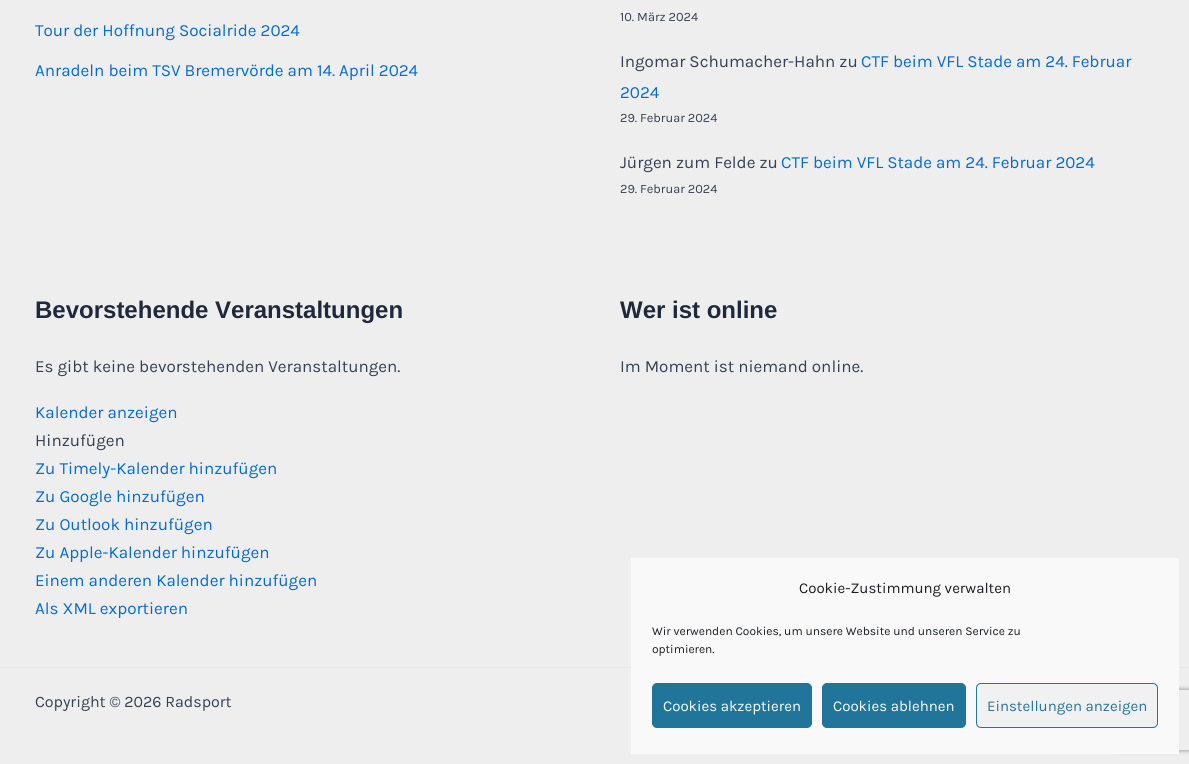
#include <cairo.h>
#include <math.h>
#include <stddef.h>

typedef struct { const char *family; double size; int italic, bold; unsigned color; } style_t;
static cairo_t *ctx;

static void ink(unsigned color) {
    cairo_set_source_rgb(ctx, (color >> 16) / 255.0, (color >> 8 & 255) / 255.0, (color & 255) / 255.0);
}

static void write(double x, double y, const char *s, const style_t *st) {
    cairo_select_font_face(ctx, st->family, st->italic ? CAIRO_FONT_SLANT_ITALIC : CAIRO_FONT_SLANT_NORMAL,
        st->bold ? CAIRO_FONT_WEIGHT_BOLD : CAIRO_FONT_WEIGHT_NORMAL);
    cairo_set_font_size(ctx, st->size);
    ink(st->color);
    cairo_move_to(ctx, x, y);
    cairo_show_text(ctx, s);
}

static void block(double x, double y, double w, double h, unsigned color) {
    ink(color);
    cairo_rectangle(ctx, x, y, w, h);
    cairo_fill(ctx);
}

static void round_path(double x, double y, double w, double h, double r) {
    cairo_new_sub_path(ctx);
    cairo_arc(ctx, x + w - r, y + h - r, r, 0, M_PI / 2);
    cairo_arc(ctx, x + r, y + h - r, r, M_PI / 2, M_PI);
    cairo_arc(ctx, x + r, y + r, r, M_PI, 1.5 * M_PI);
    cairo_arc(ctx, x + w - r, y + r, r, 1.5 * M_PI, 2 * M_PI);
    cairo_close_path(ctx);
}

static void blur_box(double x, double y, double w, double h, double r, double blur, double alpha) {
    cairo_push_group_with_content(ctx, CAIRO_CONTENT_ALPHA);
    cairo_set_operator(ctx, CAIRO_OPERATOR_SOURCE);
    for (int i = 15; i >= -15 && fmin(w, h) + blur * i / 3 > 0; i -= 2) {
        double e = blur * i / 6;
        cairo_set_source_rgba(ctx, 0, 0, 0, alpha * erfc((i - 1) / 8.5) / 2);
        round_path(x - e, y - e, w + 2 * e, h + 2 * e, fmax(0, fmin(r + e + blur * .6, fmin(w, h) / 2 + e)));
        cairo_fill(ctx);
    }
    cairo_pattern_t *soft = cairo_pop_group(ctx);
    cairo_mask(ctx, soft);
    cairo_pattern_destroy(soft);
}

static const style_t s1 = {"Karla", 17, 0, 0, 0x046bd2};
static const style_t s2 = {"Karla", 12.75, 0, 0, 0x334155};
static const style_t s3 = {"Karla", 17, 0, 0, 0x334155};
static const style_t s4 = {"Liberation Sans", 24, 0, 1, 0x1e293b};
static const style_t s5 = {"Karla", 16, 0, 0, 0x334155};
static const style_t s6 = {"Karla", 15, 0, 0, 0x191e23};
static const style_t s7 = {"Karla", 12, 0, 0, 0x191e23};
static const style_t s8 = {"Karla", 15, 0, 0, 0xffffff};
static const style_t s9 = {"Karla", 15, 0, 0, 0x21759b};

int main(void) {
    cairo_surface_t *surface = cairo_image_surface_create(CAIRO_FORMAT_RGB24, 1189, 764);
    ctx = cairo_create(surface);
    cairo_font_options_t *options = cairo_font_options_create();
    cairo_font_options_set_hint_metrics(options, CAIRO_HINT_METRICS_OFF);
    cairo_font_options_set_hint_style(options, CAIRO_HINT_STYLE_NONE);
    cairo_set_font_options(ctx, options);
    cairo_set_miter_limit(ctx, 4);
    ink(0xeeeeee);
    cairo_paint(ctx);
    write(35, 36, "Tour der Hoffnung Socialride 2024", &s1);
    write(35, 76, "Anradeln beim TSV Bremervörde am 14. April 2024", &s1);
    write(620, 21, "10. März 2024", &s2);
    write(620, 67, "Ingomar Schumacher-Hahn zu", &s3);
    write(861, 67, "CTF beim VFL Stade am 24. Februar", &s1);
    write(620, 98, "2024", &s1);
    write(620, 122, "29. Februar 2024", &s2);
    write(620, 168, "Jürgen zum Felde zu", &s3);
    write(781, 168, "CTF beim VFL Stade am 24. Februar 2024", &s1);
    write(620, 193, "29. Februar 2024", &s2);
    write(35, 318, "Bevorstehende Veranstaltungen", &s4);
    write(35, 372, "Es gibt keine bevorstehenden Veranstaltungen.", &s3);
    write(35, 418, "Kalender anzeigen", &s1);
    write(35, 446, "Hinzufügen", &s3);
    write(35, 474, "Zu Timely-Kalender hinzufügen", &s1);
    write(35, 502, "Zu Google hinzufügen", &s1);
    write(35, 530, "Zu Outlook hinzufügen", &s1);
    write(35, 558, "Zu Apple-Kalender hinzufügen", &s1);
    write(35, 586, "Einem anderen Kalender hinzufügen", &s1);
    write(35, 614, "Als XML exportieren", &s1);
    write(620, 318, "Wer ist online", &s4);
    write(620, 372, "Im Moment ist niemand online.", &s3);
    block(0, 667, 1189, 1, 0xe2e8f0);
    write(35, 707, "Copyright © 2026 Radsport", &s5);
    cairo_save(ctx);
    cairo_set_fill_rule(ctx, CAIRO_FILL_RULE_EVEN_ODD);
    cairo_new_path(ctx);
    cairo_move_to(ctx, 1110, 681);
    cairo_line_to(ctx, 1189, 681);
    cairo_line_to(ctx, 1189, 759);
    cairo_line_to(ctx, 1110, 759);
    cairo_close_path(ctx);
    cairo_move_to(ctx, 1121, 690);
    cairo_line_to(ctx, 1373, 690);
    cairo_curve_to(ctx, 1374, 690, 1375, 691, 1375, 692);
    cairo_line_to(ctx, 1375, 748);
    cairo_curve_to(ctx, 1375, 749, 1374, 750, 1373, 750);
    cairo_line_to(ctx, 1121, 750);
    cairo_curve_to(ctx, 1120, 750, 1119, 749, 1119, 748);
    cairo_line_to(ctx, 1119, 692);
    cairo_curve_to(ctx, 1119, 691, 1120, 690, 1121, 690);
    cairo_close_path(ctx);
    cairo_clip(ctx);
    ink(0x808080);
    blur_box(1119, 690, 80, 60, 2, 2.5, 1);
    cairo_restore(ctx);
    block(631, 558, 548, 196, 0xf9f9f9);
    write(799, 593, "Cookie-Zustimmung verwalten", &s6);
    write(652, 635, "Wir verwenden Cookies, um unsere Website und unseren Service zu", &s7);
    write(652, 653, "optimieren.", &s7);
    ink(0x21759b);
    round_path(652.5, 683.5, 159, 44, 4.5);
    cairo_fill_preserve(ctx);
    cairo_set_line_width(ctx, 1);
    cairo_stroke(ctx);
    write(663, 711, "Cookies akzeptieren", &s8);
    ink(0x21759b);
    round_path(822.5, 683.5, 143, 44, 4.5);
    cairo_fill_preserve(ctx);
    cairo_stroke(ctx);
    write(833, 711, "Cookies ablehnen", &s8);
    ink(0xf1f1f1);
    round_path(976.5, 683.5, 181, 44, 4.5);
    cairo_fill_preserve(ctx);
    ink(0x21759b);
    cairo_stroke(ctx);
    write(987, 711, "Einstellungen anzeigen", &s9);
    cairo_surface_write_to_png(surface, "screenshot.png");
    cairo_font_options_destroy(options);
    cairo_destroy(ctx);
    cairo_surface_destroy(surface);
    return 0;
}
